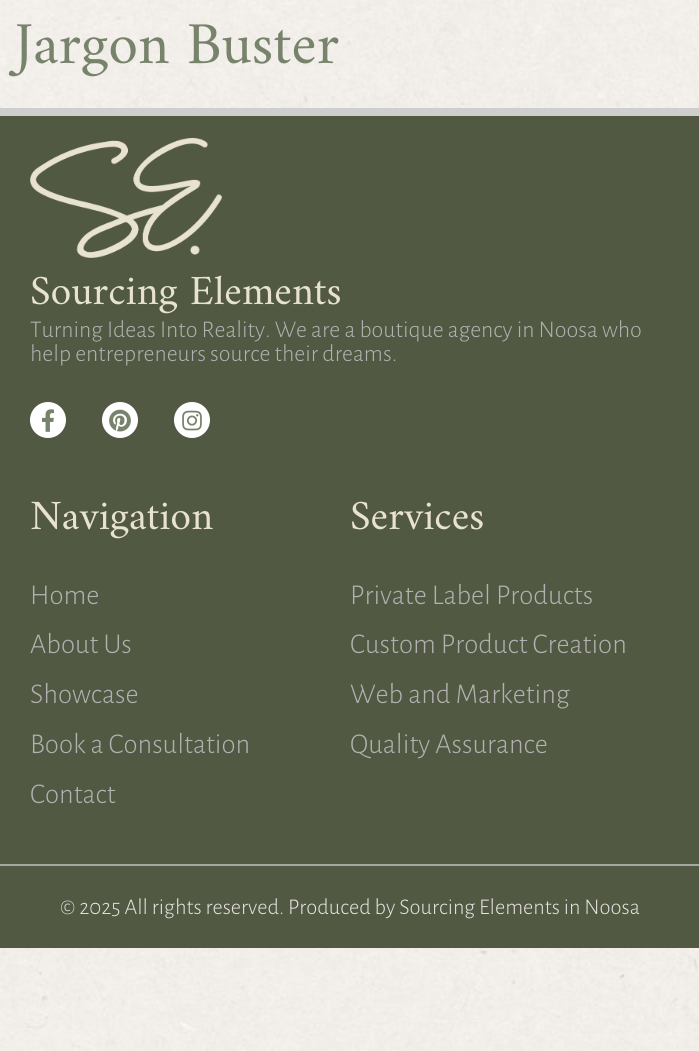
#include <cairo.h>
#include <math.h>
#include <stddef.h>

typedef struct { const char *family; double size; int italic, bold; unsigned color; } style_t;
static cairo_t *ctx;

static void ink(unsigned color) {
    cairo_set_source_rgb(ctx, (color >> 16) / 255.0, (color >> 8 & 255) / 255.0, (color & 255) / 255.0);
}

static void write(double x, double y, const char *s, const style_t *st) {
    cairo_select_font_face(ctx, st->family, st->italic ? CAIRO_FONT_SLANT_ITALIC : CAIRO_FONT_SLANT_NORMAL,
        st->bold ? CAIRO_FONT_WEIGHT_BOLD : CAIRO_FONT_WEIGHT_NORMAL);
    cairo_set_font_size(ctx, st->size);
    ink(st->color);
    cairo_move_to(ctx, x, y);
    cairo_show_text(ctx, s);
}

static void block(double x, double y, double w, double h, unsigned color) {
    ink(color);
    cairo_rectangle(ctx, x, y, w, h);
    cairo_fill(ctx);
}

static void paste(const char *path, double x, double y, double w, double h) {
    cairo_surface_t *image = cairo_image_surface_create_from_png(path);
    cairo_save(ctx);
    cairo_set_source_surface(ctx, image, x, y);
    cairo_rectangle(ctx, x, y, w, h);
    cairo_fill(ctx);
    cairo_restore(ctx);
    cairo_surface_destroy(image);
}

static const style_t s1 = {"Amiri", 60, 0, 0, 0x77836b};
static const style_t s2 = {"Amiri", 42, 0, 0, 0xe8e2d0};
static const style_t s3 = {"Alegreya Sans Light", 24, 0, 0, 0xb1b1b1};
static const style_t s4 = {"Alegreya Sans Light", 28.75, 0, 0, 0xb1b1b1};
static const style_t s5 = {"Alegreya Sans Light", 22.5, 0, 0, 0xe6e3e3};

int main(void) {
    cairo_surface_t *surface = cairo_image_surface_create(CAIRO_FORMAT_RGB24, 699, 1051);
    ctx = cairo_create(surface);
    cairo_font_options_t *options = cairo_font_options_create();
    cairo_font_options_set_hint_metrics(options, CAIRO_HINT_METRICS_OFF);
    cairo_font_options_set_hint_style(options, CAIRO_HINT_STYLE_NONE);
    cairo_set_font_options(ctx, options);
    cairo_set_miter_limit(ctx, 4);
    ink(0xffffff);
    cairo_paint(ctx);
    paste("pic1.png", 0, 0, 699, 1051);
    write(15, 63, "Jargon Buster", &s1);
    block(0, 116, 699, 748, 0x515942);
    block(0, 108, 699, 8, 0xcecece);
    paste("pic2.png", 30, 138, 192, 120);
    write(30, 304, "Sourcing Elements", &s2);
    write(30, 337, "Turning Ideas Into Reality. We are a boutique agency in Noosa who", &s3);
    write(30, 361, "help entrepreneurs source their dreams.", &s3);
    ink(0xffffff);
    cairo_new_path(ctx);
    cairo_arc(ctx, 48, 420, 18, 0, 2 * M_PI);
    cairo_fill(ctx);
    paste("pic3.png", 42, 409, 12, 23);
    cairo_arc(ctx, 120, 420, 18, 0, 2 * M_PI);
    cairo_fill(ctx);
    paste("pic4.png", 109, 409, 22, 23);
    cairo_arc(ctx, 192, 420, 18, 0, 2 * M_PI);
    cairo_fill(ctx);
    paste("pic5.png", 182, 410, 20, 21);
    write(30, 529, "Navigation", &s2);
    write(30, 604, "Home", &s4);
    write(30, 653, "About Us", &s4);
    write(30, 703, "Showcase", &s4);
    write(30, 753, "Book a Consultation", &s4);
    write(30, 803, "Contact", &s4);
    write(350, 529, "Services", &s2);
    write(350, 604, "Private Label Products", &s4);
    write(350, 653, "Custom Product Creation", &s4);
    write(350, 703, "Web and Marketing", &s4);
    write(350, 753, "Quality Assurance", &s4);
    block(0, 866, 699, 82, 0x515942);
    block(0, 864, 699, 2, 0xa5a7a0);
    write(60, 914, "© 2025 All rights reserved. Produced by Sourcing Elements in Noosa", &s5);
    cairo_surface_write_to_png(surface, "screenshot.png");
    cairo_font_options_destroy(options);
    cairo_destroy(ctx);
    cairo_surface_destroy(surface);
    return 0;
}
